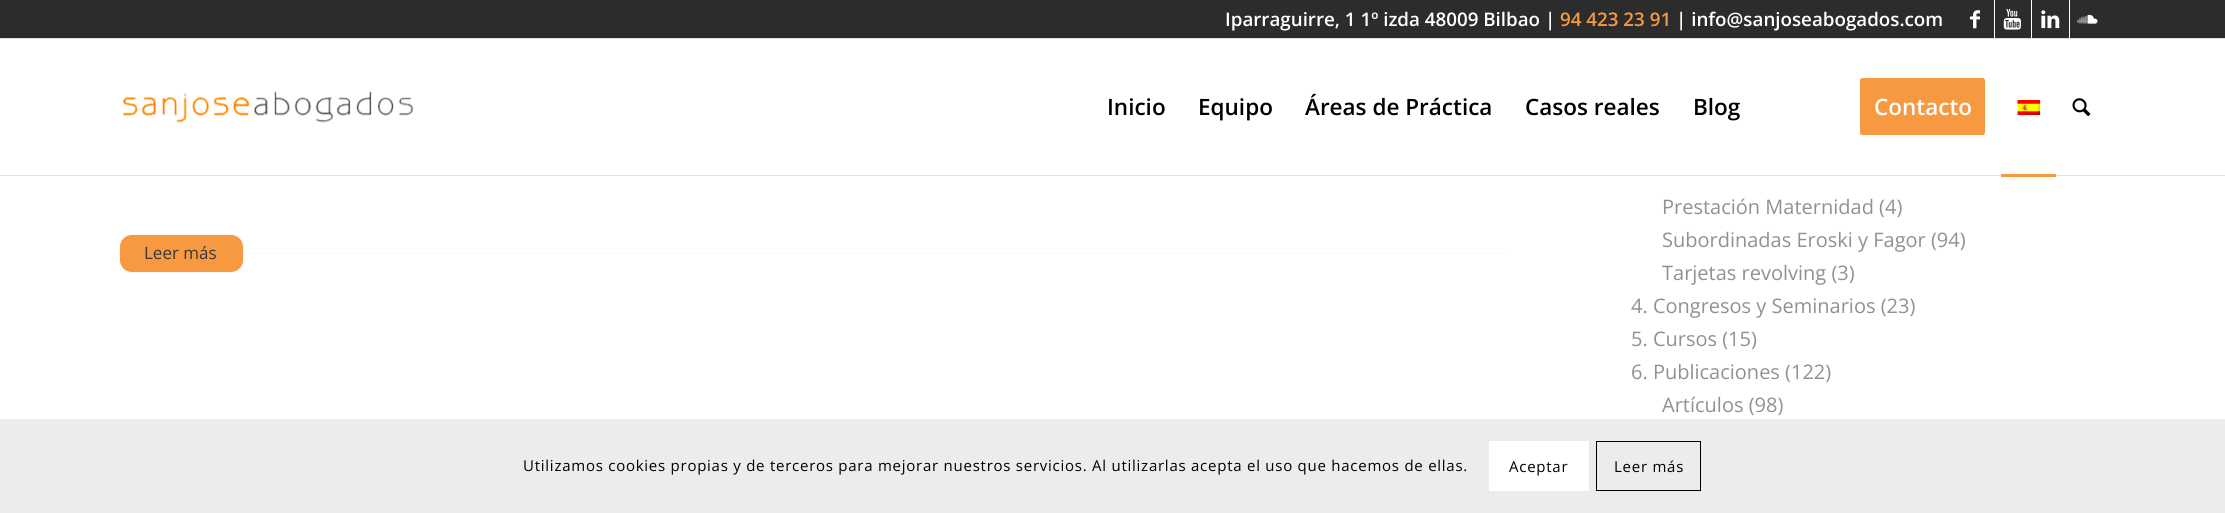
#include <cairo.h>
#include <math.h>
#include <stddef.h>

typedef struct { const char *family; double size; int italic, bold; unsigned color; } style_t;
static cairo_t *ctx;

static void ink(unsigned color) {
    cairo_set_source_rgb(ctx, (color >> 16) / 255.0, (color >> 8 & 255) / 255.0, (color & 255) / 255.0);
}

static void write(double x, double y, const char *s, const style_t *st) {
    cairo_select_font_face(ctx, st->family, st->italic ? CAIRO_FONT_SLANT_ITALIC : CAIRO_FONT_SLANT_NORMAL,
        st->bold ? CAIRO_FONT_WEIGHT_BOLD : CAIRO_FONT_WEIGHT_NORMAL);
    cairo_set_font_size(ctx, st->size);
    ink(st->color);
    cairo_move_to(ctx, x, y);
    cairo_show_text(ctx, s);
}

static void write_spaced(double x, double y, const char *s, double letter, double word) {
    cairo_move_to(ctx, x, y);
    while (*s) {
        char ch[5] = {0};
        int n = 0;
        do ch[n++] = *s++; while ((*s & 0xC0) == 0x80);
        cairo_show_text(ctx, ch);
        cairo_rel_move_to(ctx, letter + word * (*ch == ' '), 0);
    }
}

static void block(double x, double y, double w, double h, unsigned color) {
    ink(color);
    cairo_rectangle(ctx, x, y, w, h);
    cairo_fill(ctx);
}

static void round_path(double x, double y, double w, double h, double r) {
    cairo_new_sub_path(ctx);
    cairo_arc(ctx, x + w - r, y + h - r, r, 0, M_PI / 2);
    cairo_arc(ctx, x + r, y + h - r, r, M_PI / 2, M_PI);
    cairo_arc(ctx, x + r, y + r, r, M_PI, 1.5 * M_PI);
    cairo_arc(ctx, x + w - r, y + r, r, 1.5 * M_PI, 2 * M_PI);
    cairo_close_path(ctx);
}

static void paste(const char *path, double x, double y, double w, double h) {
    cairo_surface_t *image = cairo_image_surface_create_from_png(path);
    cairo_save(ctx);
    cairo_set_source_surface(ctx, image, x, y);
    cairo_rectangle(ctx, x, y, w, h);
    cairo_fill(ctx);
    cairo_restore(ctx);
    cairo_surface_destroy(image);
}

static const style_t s1 = {"Open Sans SemiBold", 18.75, 0, 0, 0xffffff};
static const style_t s2 = {"Open Sans SemiBold", 18.75, 0, 0, 0xf79941};
static const style_t s3 = {"Open Sans SemiBold", 22.5, 0, 0, 0x000000};
static const style_t s4 = {"Open Sans SemiBold", 22.5, 0, 0, 0xffffff};
static const style_t s5 = {"Open Sans", 17, 0, 0, 0x383838};
static const style_t s6 = {"Open Sans", 20, 0, 0, 0x919191};

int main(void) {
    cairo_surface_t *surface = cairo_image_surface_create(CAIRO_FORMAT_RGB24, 2225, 513);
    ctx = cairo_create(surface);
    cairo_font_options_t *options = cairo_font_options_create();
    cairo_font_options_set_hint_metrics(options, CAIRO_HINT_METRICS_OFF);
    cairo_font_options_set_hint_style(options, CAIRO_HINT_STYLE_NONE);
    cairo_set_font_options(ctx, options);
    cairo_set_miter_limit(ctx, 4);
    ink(0xffffff);
    cairo_paint(ctx);
    block(0, 0, 2225, 38, 0x2c2c2c);
    block(0, 38, 2225, 1, 0xe1e1e1);
    write(1225, 26, "Iparraguirre, 1 1º izda 48009 Bilbao |", &s1);
    write(1560, 26, "94 423 23 91", &s2);
    write(1676, 26, "| info@sanjoseabogados.com", &s1);
    block(1994, 0, 1, 38, 0xffffff);
    paste("pic1.png", 1970, 10, 10, 19);
    block(2031, 0, 1, 38, 0xffffff);
    paste("pic2.png", 2003, 8, 18, 22);
    block(2069, 0, 1, 38, 0xffffff);
    paste("pic3.png", 2041, 10, 19, 19);
    paste("pic4.png", 2077, 14, 21, 10);
    block(0, 175, 2225, 1, 0xe1e1e1);
    paste("pic5.png", 122, 91, 292, 32);
    write(1107, 115, "Inicio", &s3);
    write(1198, 115, "Equipo", &s3);
    write(1305, 115, "Áreas de Práctica", &s3);
    write(1525, 115, "Casos reales", &s3);
    write(1693, 115, "Blog", &s3);
    ink(0xf79941);
    round_path(1861.5, 79.5, 122, 54, 1);
    cairo_fill_preserve(ctx);
    cairo_set_line_width(ctx, 3);
    cairo_stroke(ctx);
    write(1874, 115, "Contacto", &s4);
    paste("pic6.png", 2017, 100, 24, 15);
    block(2001, 174, 55, 3, 0xf79941);
    paste("pic7.png", 2072, 98, 19, 18);
    round_path(119.5, 234.5, 124, 38, 12.5);
    cairo_fill_preserve(ctx);
    ink(0xf8f8f8);
    cairo_set_line_width(ctx, 1);
    cairo_stroke(ctx);
    write(144, 259, "Leer más", &s5);
    block(244, 253, 1264, 1, 0xf8f8f8);
    write(1662, 214, "Prestación Maternidad (4)", &s6);
    write(1662, 247, "Subordinadas Eroski y Fagor (94)", &s6);
    write(1662, 280, "Tarjetas revolving (3)", &s6);
    write(1631, 313, "4. Congresos y Seminarios (23)", &s6);
    write(1631, 346, "5. Cursos (15)", &s6);
    write(1631, 379, "6. Publicaciones (122)", &s6);
    write(1662, 412, "Artículos (98)", &s6);
    block(0, 419, 2225, 94, 0xececec);
    cairo_set_font_size(ctx, 15);
    ink(0x000000);
    write_spaced(523, 471, "Utilizamos cookies propias y de terceros para mejorar nuestros servicios. Al utilizarlas acepta el uso que hacemos de ellas.", 0.75, 0);
    block(1489, 441, 100, 50, 0xffffff);
    ink(0x000000);
    write_spaced(1509, 472, "Aceptar", 0.75, 0);
    cairo_rectangle(ctx, 1596.5, 441.5, 104, 49);
    cairo_stroke(ctx);
    write_spaced(1614, 472, "Leer más", 0.75, 0);
    cairo_surface_write_to_png(surface, "screenshot.png");
    cairo_font_options_destroy(options);
    cairo_destroy(ctx);
    cairo_surface_destroy(surface);
    return 0;
}
